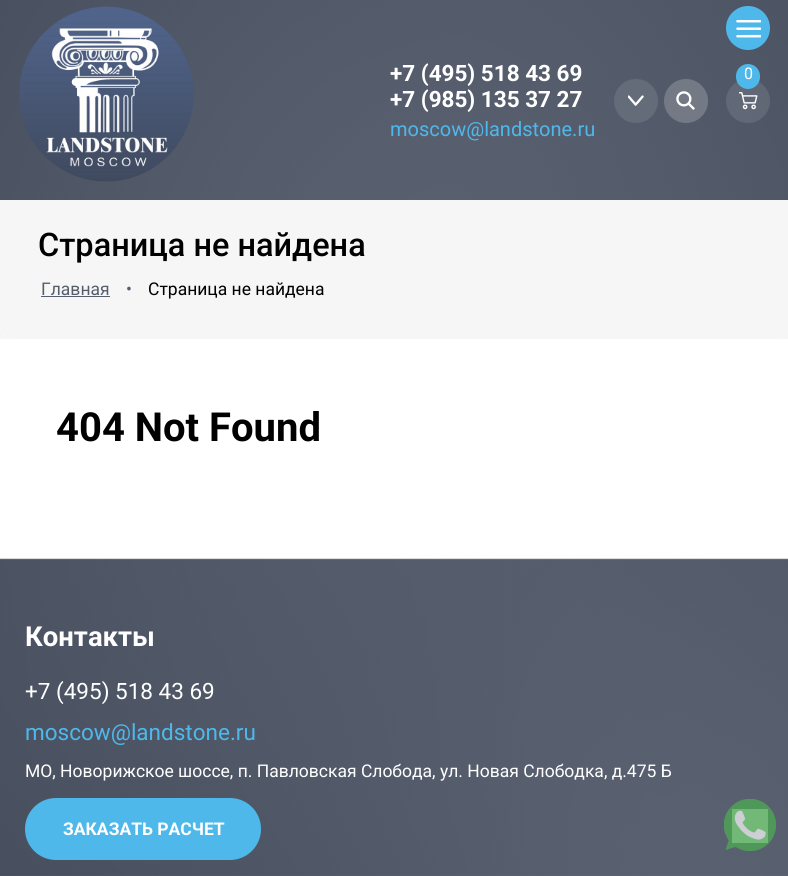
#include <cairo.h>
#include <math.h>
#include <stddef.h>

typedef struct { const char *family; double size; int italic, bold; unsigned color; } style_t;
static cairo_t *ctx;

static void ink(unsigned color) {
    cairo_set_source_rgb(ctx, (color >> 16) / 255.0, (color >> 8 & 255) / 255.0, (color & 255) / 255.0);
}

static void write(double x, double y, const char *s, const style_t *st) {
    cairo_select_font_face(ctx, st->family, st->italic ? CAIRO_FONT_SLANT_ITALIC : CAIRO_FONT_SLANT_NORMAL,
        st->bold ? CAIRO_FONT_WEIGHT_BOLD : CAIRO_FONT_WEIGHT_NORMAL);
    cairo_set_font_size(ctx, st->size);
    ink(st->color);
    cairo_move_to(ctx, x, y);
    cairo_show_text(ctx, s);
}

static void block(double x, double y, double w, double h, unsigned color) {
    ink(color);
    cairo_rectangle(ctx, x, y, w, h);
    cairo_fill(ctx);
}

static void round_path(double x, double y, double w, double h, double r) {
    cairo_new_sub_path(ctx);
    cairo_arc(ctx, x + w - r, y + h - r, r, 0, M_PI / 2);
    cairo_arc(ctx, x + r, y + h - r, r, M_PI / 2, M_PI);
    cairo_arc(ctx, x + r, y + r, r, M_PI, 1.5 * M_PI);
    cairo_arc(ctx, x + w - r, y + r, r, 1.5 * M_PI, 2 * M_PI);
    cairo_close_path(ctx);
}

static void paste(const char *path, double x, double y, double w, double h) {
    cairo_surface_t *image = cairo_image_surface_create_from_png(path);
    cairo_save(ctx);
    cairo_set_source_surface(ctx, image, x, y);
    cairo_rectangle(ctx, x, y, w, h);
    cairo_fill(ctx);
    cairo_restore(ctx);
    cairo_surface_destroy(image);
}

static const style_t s1 = {"Roboto", 22.5, 0, 1, 0xffffff};
static const style_t s2 = {"Roboto", 20, 0, 0, 0x4fb8eb};
static const style_t s3 = {"Roboto", 16, 0, 0, 0xffffff};
static const style_t s4 = {"Roboto Medium", 32.5, 0, 0, 0x000000};
static const style_t s5 = {"Roboto", 17.5, 0, 0, 0x555d6c};
static const style_t s6 = {"Roboto", 17.5, 0, 0, 0x000000};
static const style_t s7 = {"Roboto", 40, 0, 1, 0x000000};
static const style_t s8 = {"Roboto", 27.5, 0, 1, 0xffffff};
static const style_t s9 = {"Roboto", 22.5, 0, 0, 0xffffff};
static const style_t s10 = {"Roboto", 22.5, 0, 0, 0x4fb8eb};
static const style_t s11 = {"Roboto", 17.5, 0, 0, 0xffffff};
static const style_t s12 = {"Roboto", 17.5, 0, 1, 0xffffff};

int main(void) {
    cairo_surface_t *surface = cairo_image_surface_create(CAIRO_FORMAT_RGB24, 788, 876);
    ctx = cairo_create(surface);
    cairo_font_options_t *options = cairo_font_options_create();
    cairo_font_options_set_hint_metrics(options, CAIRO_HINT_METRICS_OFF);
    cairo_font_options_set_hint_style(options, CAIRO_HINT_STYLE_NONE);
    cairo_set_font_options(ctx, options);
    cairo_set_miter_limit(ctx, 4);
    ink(0xffffff);
    cairo_paint(ctx);
    ink(0xf6f6f6);
    cairo_new_path(ctx);
    cairo_move_to(ctx, 29, 339);
    cairo_line_to(ctx, 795, 339);
    cairo_curve_to(ctx, 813, 339, 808, 313, 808, 303);
    cairo_line_to(ctx, 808, 189);
    cairo_line_to(ctx, 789, 189);
    cairo_line_to(ctx, 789, 326);
    cairo_curve_to(ctx, 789, 333, 783, 339, 776, 339);
    cairo_close_path(ctx);
    cairo_fill(ctx);
    cairo_new_path(ctx);
    cairo_move_to(ctx, -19, 189);
    cairo_line_to(ctx, -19, 303);
    cairo_curve_to(ctx, -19, 313, -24, 339, -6, 339);
    cairo_line_to(ctx, 760, 339);
    cairo_line_to(ctx, 12, 339);
    cairo_curve_to(ctx, 6, 339, 0, 333, 0, 326);
    cairo_line_to(ctx, 0, 189);
    cairo_close_path(ctx);
    cairo_fill(ctx);
    cairo_new_path(ctx);
    cairo_move_to(ctx, 0, 189);
    cairo_line_to(ctx, 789, 189);
    cairo_line_to(ctx, 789, 326);
    cairo_curve_to(ctx, 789, 333, 783, 339, 776, 339);
    cairo_line_to(ctx, 13, 339);
    cairo_curve_to(ctx, 6, 339, 0, 333, 0, 326);
    cairo_close_path(ctx);
    cairo_fill(ctx);
    paste("pic2.png", 0, 0, 788, 200);
    ink(0x4fb8eb);
    cairo_arc(ctx, 748, 28, 22, 0, 2 * M_PI);
    cairo_fill(ctx);
    paste("pic1.png", 736, 20, 25, 18);
    paste("pic3.png", 19, 6, 175, 176);
    write(390, 81, "+7 (495) 518 43 69", &s1);
    write(390, 107, "+7 (985) 135 37 27", &s1);
    write(390, 136, "moscow@landstone.ru", &s2);
    ink(0x646b79);
    cairo_new_path(ctx);
    cairo_arc(ctx, 636, 101, 22, 0, 2 * M_PI);
    cairo_fill(ctx);
    paste("pic4.png", 628, 95, 16, 11);
    cairo_set_source_rgba(ctx, 1, 1, 1, 0.1);
    cairo_arc(ctx, 748, 101, 22, 0, 2 * M_PI);
    cairo_fill(ctx);
    ink(0x4fb8eb);
    round_path(736, 64, 24, 25, 12);
    cairo_fill(ctx);
    write(744, 79, "0", &s3);
    paste("pic5.png", 739, 92, 19, 18);
    ink(0x737985);
    cairo_arc(ctx, 686, 101, 22, 0, 2 * M_PI);
    cairo_fill(ctx);
    paste("pic6.png", 676, 91, 19, 19);
    write(38, 256, "Страница не найдена", &s4);
    write(41, 295, "Главная", &s5);
    block(41, 296, 69, 1, 0x555d6c);
    write(126, 295, "•", &s5);
    write(148, 295, "Страница не найдена", &s6);
    write(56, 441, "404 Not Found", &s7);
    paste("pic7.png", 0, 558, 788, 318);
    write(25, 646, "Контакты", &s8);
    write(25, 699, "+7 (495) 518 43 69", &s9);
    write(25, 740, "moscow@landstone.ru", &s10);
    write(25, 777, "МО, Новорижское шоссе, п. Павловская Слобода, ул. Новая Слободка, д.475 Б", &s11);
    ink(0x4fb8eb);
    round_path(25, 798, 236, 62, 31);
    cairo_fill(ctx);
    write(63, 835, "ЗАКАЗАТЬ РАСЧЕТ", &s12);
    paste("pic8.png", 724, 799, 52, 52);
    cairo_surface_write_to_png(surface, "screenshot.png");
    cairo_font_options_destroy(options);
    cairo_destroy(ctx);
    cairo_surface_destroy(surface);
    return 0;
}
